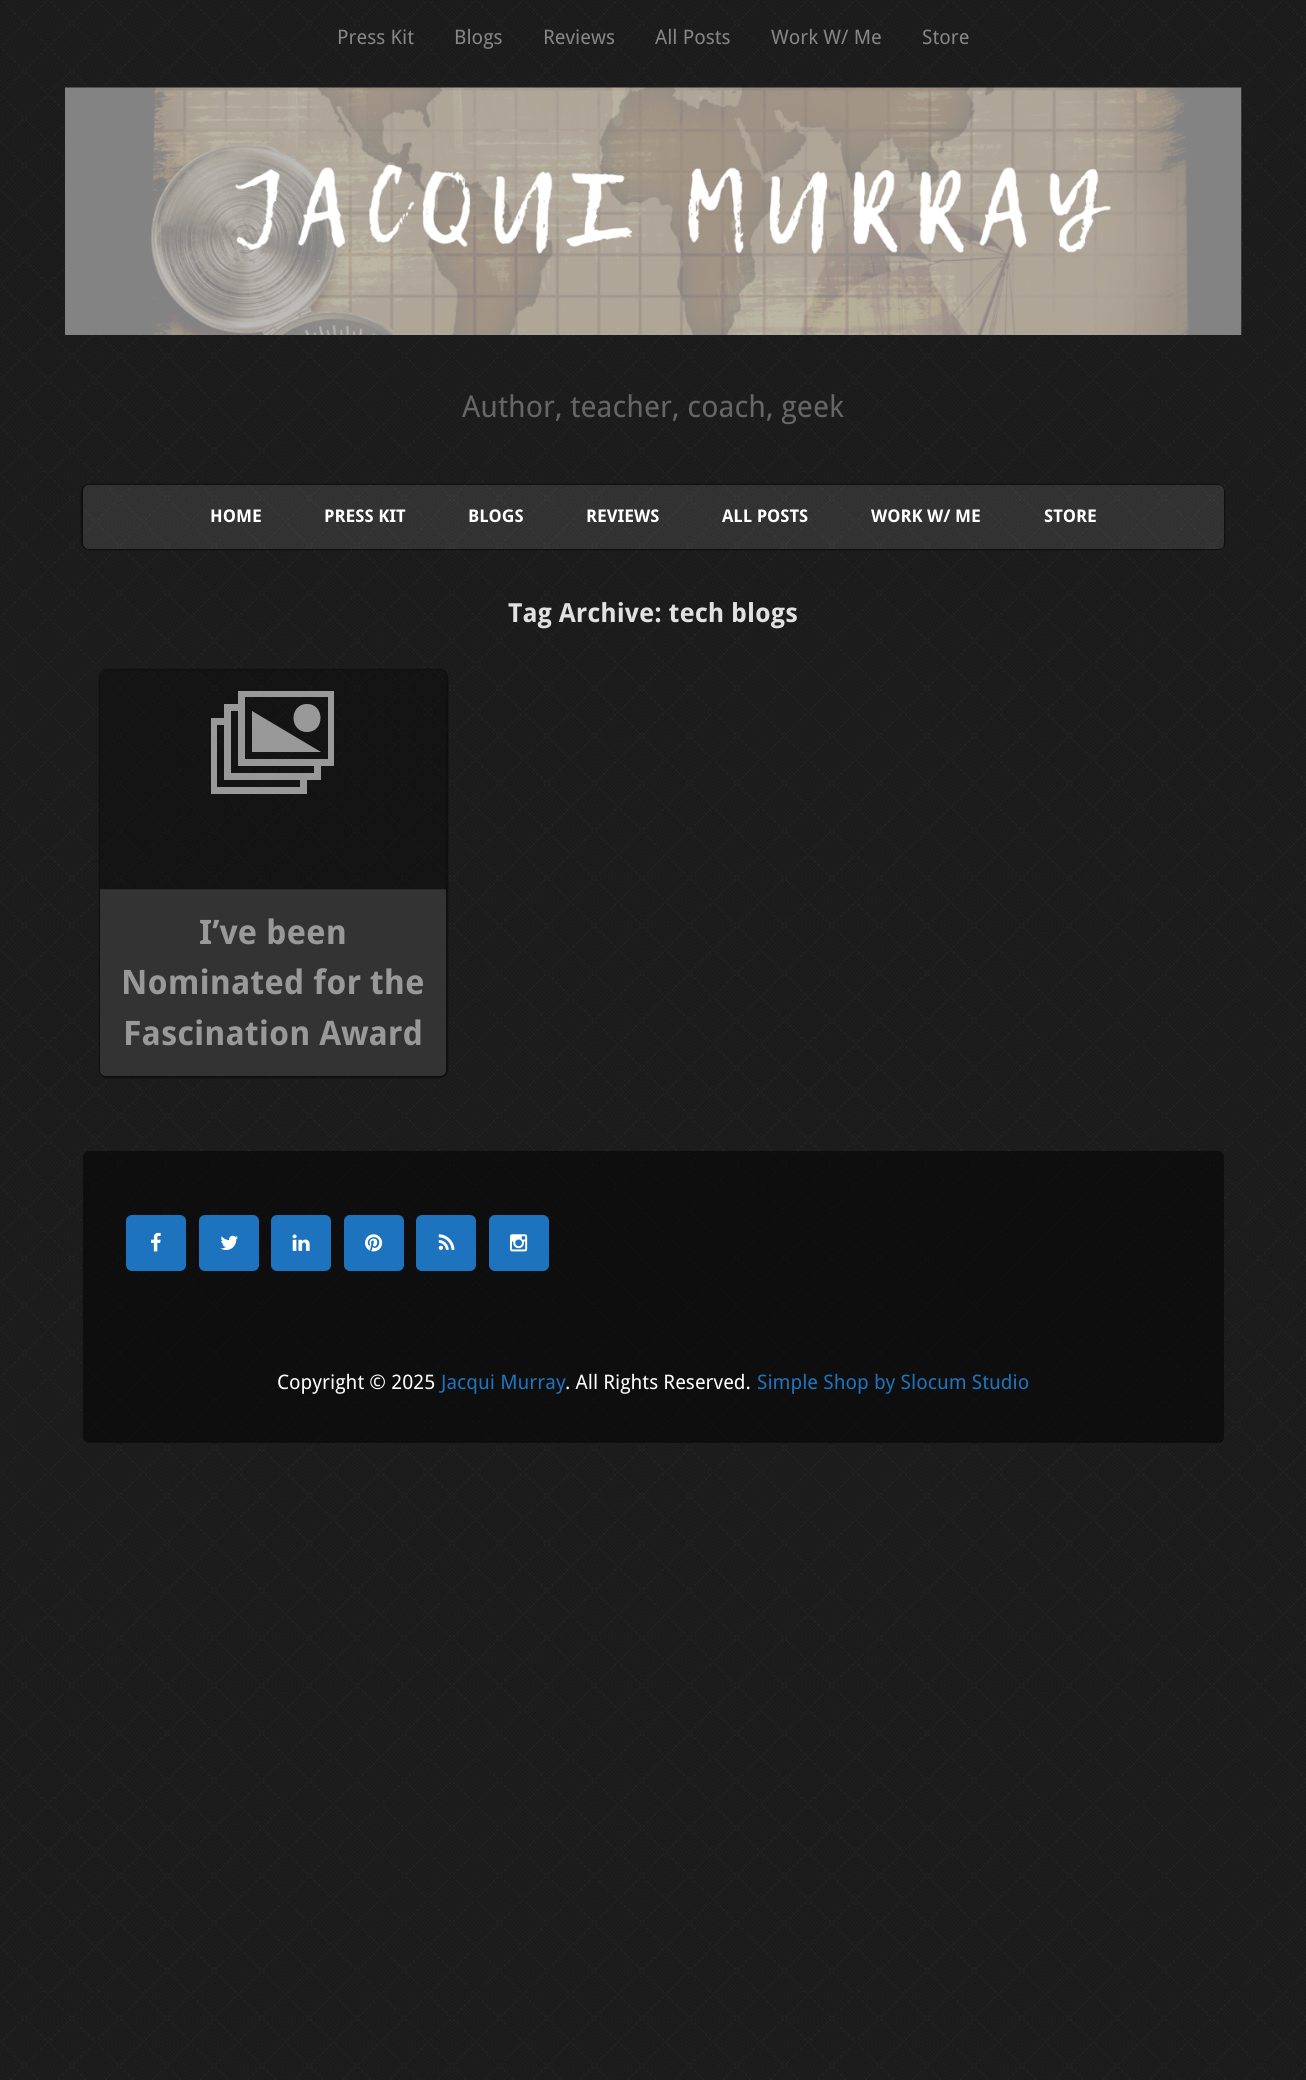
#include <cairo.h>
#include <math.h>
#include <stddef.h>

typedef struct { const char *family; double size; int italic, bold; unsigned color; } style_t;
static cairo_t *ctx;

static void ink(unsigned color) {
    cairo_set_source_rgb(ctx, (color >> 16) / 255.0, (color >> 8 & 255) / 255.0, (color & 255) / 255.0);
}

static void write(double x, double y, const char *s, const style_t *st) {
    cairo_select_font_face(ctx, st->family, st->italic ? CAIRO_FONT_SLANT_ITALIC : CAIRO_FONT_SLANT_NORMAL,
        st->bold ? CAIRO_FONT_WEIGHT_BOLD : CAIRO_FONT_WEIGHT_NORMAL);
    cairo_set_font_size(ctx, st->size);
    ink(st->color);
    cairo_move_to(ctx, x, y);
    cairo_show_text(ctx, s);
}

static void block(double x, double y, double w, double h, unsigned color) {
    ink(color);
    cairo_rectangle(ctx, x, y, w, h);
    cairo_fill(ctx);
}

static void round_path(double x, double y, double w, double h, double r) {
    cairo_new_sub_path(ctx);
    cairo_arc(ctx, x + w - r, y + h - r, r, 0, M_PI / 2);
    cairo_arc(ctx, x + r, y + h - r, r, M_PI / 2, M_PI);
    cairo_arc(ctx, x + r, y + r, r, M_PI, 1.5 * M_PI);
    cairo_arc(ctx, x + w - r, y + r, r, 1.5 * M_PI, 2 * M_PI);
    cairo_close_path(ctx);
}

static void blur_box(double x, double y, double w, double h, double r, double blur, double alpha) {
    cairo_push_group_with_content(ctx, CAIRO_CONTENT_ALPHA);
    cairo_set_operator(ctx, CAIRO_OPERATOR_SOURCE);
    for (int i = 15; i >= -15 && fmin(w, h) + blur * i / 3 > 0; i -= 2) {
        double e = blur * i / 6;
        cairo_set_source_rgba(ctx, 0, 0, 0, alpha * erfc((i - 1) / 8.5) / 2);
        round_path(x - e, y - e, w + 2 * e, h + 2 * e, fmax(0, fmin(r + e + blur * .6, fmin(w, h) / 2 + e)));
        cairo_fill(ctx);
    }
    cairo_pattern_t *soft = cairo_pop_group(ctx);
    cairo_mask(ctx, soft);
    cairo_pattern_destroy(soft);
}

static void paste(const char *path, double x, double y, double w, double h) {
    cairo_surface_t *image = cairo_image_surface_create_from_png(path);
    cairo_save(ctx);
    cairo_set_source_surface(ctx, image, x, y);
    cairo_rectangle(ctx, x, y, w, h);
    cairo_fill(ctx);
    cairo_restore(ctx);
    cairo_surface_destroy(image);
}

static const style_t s1 = {"Droid Sans", 20, 0, 0, 0x868686};
static const style_t s2 = {"Droid Sans", 30, 0, 0, 0x666666};
static const style_t s3 = {"Droid Sans", 17.5, 0, 1, 0xffffff};
static const style_t s4 = {"Droid Sans", 26.25, 0, 1, 0xe1e1e1};
static const style_t s5 = {"Droid Sans", 33.75, 0, 1, 0x999999};
static const style_t s6 = {"Droid Sans", 20, 0, 0, 0xffffff};
static const style_t s7 = {"Droid Sans", 20, 0, 0, 0x1e73be};

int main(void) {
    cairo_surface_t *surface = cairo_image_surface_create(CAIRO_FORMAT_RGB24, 1306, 2080);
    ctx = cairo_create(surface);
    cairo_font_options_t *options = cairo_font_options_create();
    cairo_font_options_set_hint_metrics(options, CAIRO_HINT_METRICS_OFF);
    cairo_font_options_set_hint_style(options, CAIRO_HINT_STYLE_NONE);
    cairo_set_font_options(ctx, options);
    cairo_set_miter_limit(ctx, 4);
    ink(0xffffff);
    cairo_paint(ctx);
    paste("pic1.png", 0, 0, 1306, 2080);
    write(337, 44, "Press Kit", &s1);
    write(454, 44, "Blogs", &s1);
    write(543, 44, "Reviews", &s1);
    write(655, 44, "All Posts", &s1);
    write(771, 44, "Work W/ Me", &s1);
    write(922, 44, "Store", &s1);
    paste("pic2.png", 65, 87, 1177, 248);
    write(462, 417, "Author, teacher, coach, geek", &s2);
    cairo_save(ctx);
    cairo_set_fill_rule(ctx, CAIRO_FILL_RULE_EVEN_ODD);
    cairo_new_path(ctx);
    cairo_move_to(ctx, 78, 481);
    cairo_line_to(ctx, 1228, 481);
    cairo_line_to(ctx, 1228, 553);
    cairo_line_to(ctx, 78, 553);
    cairo_close_path(ctx);
    cairo_move_to(ctx, 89, 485);
    cairo_line_to(ctx, 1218, 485);
    cairo_curve_to(ctx, 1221.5, 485, 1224, 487.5, 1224, 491);
    cairo_line_to(ctx, 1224, 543);
    cairo_curve_to(ctx, 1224, 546.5, 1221.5, 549, 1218, 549);
    cairo_line_to(ctx, 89, 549);
    cairo_curve_to(ctx, 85.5, 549, 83, 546.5, 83, 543);
    cairo_line_to(ctx, 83, 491);
    cairo_curve_to(ctx, 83, 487.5, 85.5, 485, 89, 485);
    cairo_close_path(ctx);
    cairo_clip(ctx);
    ink(0x000000);
    blur_box(81, 484, 1144, 66, 8, 0.5, 0.5);
    cairo_restore(ctx);
    cairo_set_source_rgba(ctx, 1, 1, 1, 0.1);
    round_path(83, 485, 1141, 64, 6);
    cairo_fill(ctx);
    write(210, 522, "HOME", &s3);
    write(324, 522, "PRESS KIT", &s3);
    write(468, 522, "BLOGS", &s3);
    write(586, 522, "REVIEWS", &s3);
    write(722, 522, "ALL POSTS", &s3);
    write(871, 522, "WORK W/ ME", &s3);
    write(1044, 522, "STORE", &s3);
    write(508, 622, "Tag Archive: tech blogs", &s4);
    cairo_save(ctx);
    cairo_set_fill_rule(ctx, CAIRO_FILL_RULE_EVEN_ODD);
    cairo_new_path(ctx);
    cairo_move_to(ctx, 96, 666);
    cairo_line_to(ctx, 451, 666);
    cairo_line_to(ctx, 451, 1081);
    cairo_line_to(ctx, 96, 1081);
    cairo_close_path(ctx);
    cairo_move_to(ctx, 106, 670);
    cairo_line_to(ctx, 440, 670);
    cairo_curve_to(ctx, 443.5, 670, 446, 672.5, 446, 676);
    cairo_line_to(ctx, 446, 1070);
    cairo_curve_to(ctx, 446, 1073.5, 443.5, 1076, 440, 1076);
    cairo_line_to(ctx, 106, 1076);
    cairo_curve_to(ctx, 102.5, 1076, 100, 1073.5, 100, 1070);
    cairo_line_to(ctx, 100, 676);
    cairo_curve_to(ctx, 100, 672.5, 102.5, 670, 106, 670);
    cairo_close_path(ctx);
    cairo_clip(ctx);
    ink(0x000000);
    blur_box(99, 669, 349, 409, 8, 0.5, 0.5);
    cairo_restore(ctx);
    cairo_set_source_rgba(ctx, 0, 0, 0, 0.3);
    round_path(100, 670, 346, 406, 6);
    cairo_fill(ctx);
    ink(0x999999);
    cairo_new_path(ctx);
    cairo_move_to(ctx, 238, 691);
    cairo_line_to(ctx, 334, 691);
    cairo_line_to(ctx, 334, 766);
    cairo_line_to(ctx, 321, 766);
    cairo_line_to(ctx, 321, 780);
    cairo_line_to(ctx, 307, 780);
    cairo_line_to(ctx, 307, 794);
    cairo_line_to(ctx, 211, 794);
    cairo_line_to(ctx, 211, 718);
    cairo_line_to(ctx, 224, 718);
    cairo_line_to(ctx, 224, 704);
    cairo_line_to(ctx, 238, 704);
    cairo_close_path(ctx);
    cairo_move_to(ctx, 328, 759);
    cairo_line_to(ctx, 328, 697);
    cairo_line_to(ctx, 245, 697);
    cairo_line_to(ctx, 245, 759);
    cairo_close_path(ctx);
    cairo_move_to(ctx, 307, 732);
    cairo_curve_to(ctx, 289, 732, 289, 704, 307, 704);
    cairo_curve_to(ctx, 325, 704, 325, 732, 307, 732);
    cairo_close_path(ctx);
    cairo_move_to(ctx, 314, 773);
    cairo_line_to(ctx, 314, 766);
    cairo_line_to(ctx, 238, 766);
    cairo_line_to(ctx, 238, 711);
    cairo_line_to(ctx, 231, 711);
    cairo_line_to(ctx, 231, 773);
    cairo_close_path(ctx);
    cairo_move_to(ctx, 252, 711);
    cairo_line_to(ctx, 321, 752);
    cairo_line_to(ctx, 252, 752);
    cairo_close_path(ctx);
    cairo_move_to(ctx, 300, 787);
    cairo_line_to(ctx, 300, 780);
    cairo_line_to(ctx, 224, 780);
    cairo_line_to(ctx, 224, 725);
    cairo_line_to(ctx, 217, 725);
    cairo_line_to(ctx, 217, 787);
    cairo_close_path(ctx);
    cairo_fill(ctx);
    ink(0x333333);
    cairo_new_path(ctx);
    cairo_move_to(ctx, 100, 889);
    cairo_line_to(ctx, 446, 889);
    cairo_line_to(ctx, 446, 1070);
    cairo_curve_to(ctx, 446, 1073.5, 443.5, 1076, 440, 1076);
    cairo_line_to(ctx, 106, 1076);
    cairo_curve_to(ctx, 102.5, 1076, 100, 1073.5, 100, 1070);
    cairo_close_path(ctx);
    cairo_fill(ctx);
    block(100, 889, 346, 1, 0x2b2b2b);
    write(199, 944, "I’ve been", &s5);
    write(121, 994, "Nominated for the", &s5);
    write(123, 1045, "Fascination Award", &s5);
    cairo_set_source_rgba(ctx, 0, 0, 0, 0.5);
    round_path(83, 1151, 1141, 292, 6);
    cairo_fill(ctx);
    ink(0x1e73be);
    round_path(126, 1215, 60, 56, 6);
    cairo_fill(ctx);
    paste("pic3.png", 151, 1232, 10, 20);
    round_path(199, 1215, 60, 56, 6);
    cairo_fill(ctx);
    paste("pic4.png", 220, 1235, 18, 15);
    round_path(271, 1215, 60, 56, 6);
    cairo_fill(ctx);
    paste("pic5.png", 292, 1234, 18, 17);
    round_path(344, 1215, 60, 56, 6);
    cairo_fill(ctx);
    paste("pic6.png", 365, 1234, 18, 18);
    round_path(416, 1215, 60, 56, 6);
    cairo_fill(ctx);
    paste("pic7.png", 438, 1234, 17, 16);
    round_path(489, 1215, 60, 56, 6);
    cairo_fill(ctx);
    paste("pic8.png", 510, 1234, 18, 18);
    write(277, 1389, "Copyright © 2025", &s6);
    write(441, 1389, "Jacqui Murray", &s7);
    write(565, 1389, ". All Rights Reserved.", &s6);
    write(757, 1389, "Simple Shop by Slocum Studio", &s7);
    cairo_surface_write_to_png(surface, "screenshot.png");
    cairo_font_options_destroy(options);
    cairo_destroy(ctx);
    cairo_surface_destroy(surface);
    return 0;
}
